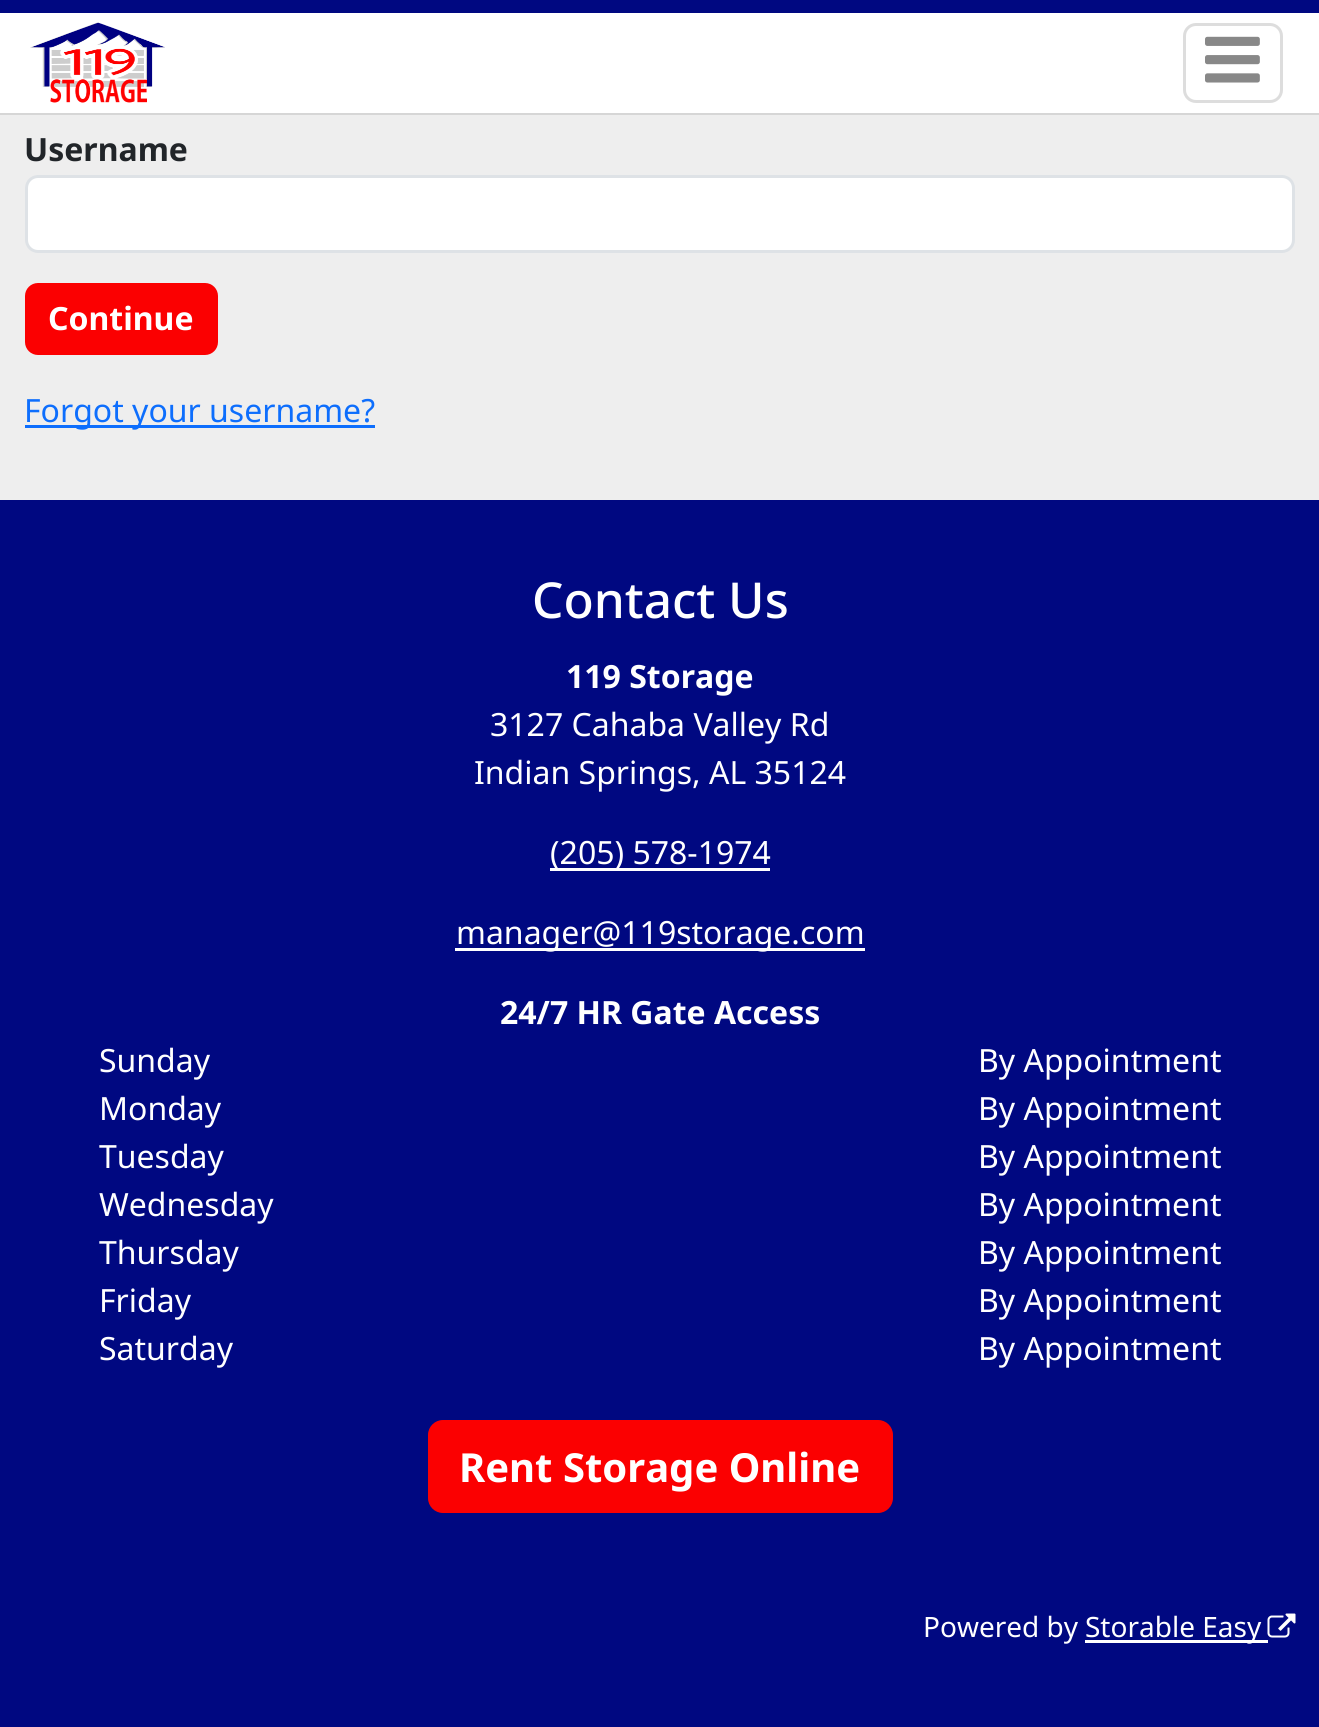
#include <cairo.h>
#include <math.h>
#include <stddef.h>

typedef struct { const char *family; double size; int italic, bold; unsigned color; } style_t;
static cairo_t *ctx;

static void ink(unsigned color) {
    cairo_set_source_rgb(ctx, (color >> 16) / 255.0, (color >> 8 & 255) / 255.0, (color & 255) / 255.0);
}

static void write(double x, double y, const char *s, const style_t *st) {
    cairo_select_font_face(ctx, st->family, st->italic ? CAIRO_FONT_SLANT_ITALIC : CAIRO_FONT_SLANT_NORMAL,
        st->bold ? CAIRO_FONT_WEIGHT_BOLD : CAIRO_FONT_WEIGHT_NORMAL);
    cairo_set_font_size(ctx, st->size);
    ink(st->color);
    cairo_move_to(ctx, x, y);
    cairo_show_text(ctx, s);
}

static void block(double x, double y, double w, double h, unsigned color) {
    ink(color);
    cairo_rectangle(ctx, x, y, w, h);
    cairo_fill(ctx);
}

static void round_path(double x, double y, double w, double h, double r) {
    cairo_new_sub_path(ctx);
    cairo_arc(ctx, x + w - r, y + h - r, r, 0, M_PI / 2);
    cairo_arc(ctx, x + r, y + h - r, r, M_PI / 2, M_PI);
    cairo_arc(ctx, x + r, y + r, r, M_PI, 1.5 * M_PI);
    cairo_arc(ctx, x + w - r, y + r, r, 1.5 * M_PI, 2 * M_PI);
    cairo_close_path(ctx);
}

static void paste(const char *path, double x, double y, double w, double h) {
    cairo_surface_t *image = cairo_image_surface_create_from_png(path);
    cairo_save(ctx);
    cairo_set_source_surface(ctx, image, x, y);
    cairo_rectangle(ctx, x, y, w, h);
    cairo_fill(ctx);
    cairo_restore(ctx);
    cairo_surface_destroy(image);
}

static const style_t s1 = {"Noto Sans", 32, 0, 1, 0x212529};
static const style_t s2 = {"Noto Sans", 32, 0, 1, 0xffffff};
static const style_t s3 = {"Noto Sans", 32, 0, 0, 0x0d6efd};
static const style_t s4 = {"Noto Sans Medium", 49.5, 0, 0, 0xffffff};
static const style_t s5 = {"Noto Sans", 32, 0, 0, 0xffffff};
static const style_t s6 = {"Noto Sans", 40, 0, 1, 0xffffff};
static const style_t s7 = {"Noto Sans", 28, 0, 0, 0xffffff};

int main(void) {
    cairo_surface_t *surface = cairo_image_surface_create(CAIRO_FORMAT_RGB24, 1319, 1727);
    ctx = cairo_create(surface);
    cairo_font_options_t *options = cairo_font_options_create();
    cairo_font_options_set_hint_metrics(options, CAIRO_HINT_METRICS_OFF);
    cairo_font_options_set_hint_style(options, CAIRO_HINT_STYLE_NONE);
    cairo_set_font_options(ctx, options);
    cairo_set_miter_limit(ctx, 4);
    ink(0xeeeeee);
    cairo_paint(ctx);
    block(0, 113, 1319, 2, 0xd6d6d6);
    block(0, 13, 1319, 100, 0xffffff);
    block(0, 0, 1319, 13, 0x000881);
    paste("pic1.png", 30, 22, 135, 81);
    round_path(1184.5, 24.5, 97, 77, 11.5);
    ink(0xdddddd);
    cairo_set_line_width(ctx, 3);
    cairo_stroke(ctx);
    paste("pic2.png", 1205, 36, 55, 47);
    write(24, 161, "Username", &s1);
    ink(0xffffff);
    round_path(26.5, 176.5, 1267, 75, 11.5);
    cairo_fill_preserve(ctx);
    ink(0xdee2e6);
    cairo_stroke(ctx);
    ink(0xfb0001);
    round_path(25, 283, 193, 72, 13);
    cairo_fill(ctx);
    write(48, 330, "Continue", &s2);
    block(25, 425, 350, 3, 0x0d6efd);
    write(24, 422, "Forgot your username?", &s3);
    block(0, 500, 1319, 1227, 0x000881);
    write(532, 618, "Contact Us", &s4);
    write(566, 688, "119 Storage", &s2);
    write(490, 736, "3127 Cahaba Valley Rd", &s5);
    write(474, 784, "Indian Springs, AL 35124", &s5);
    block(550, 868, 220, 3, 0xffffff);
    write(550, 864, "(205) 578-1974", &s5);
    block(455, 948, 410, 3, 0xffffff);
    write(456, 944, "manager@119storage.com", &s5);
    write(500, 1024, "24/7 HR Gate Access", &s2);
    write(99, 1072, "Sunday", &s5);
    write(978, 1072, "By Appointment", &s5);
    write(99, 1120, "Monday", &s5);
    write(978, 1120, "By Appointment", &s5);
    write(99, 1168, "Tuesday", &s5);
    write(978, 1168, "By Appointment", &s5);
    write(99, 1216, "Wednesday", &s5);
    write(978, 1216, "By Appointment", &s5);
    write(99, 1264, "Thursday", &s5);
    write(978, 1264, "By Appointment", &s5);
    write(99, 1312, "Friday", &s5);
    write(978, 1312, "By Appointment", &s5);
    write(99, 1360, "Saturday", &s5);
    write(978, 1360, "By Appointment", &s5);
    ink(0xfb0001);
    round_path(428, 1420, 465, 93, 15);
    cairo_fill(ctx);
    write(459, 1482, "Rent Storage Online", &s6);
    write(923, 1637, "Powered by", &s7);
    block(1085, 1640, 183, 3, 0xffffff);
    write(1085, 1637, "Storable Easy", &s7);
    paste("pic3.png", 1267, 1613, 29, 25);
    cairo_surface_write_to_png(surface, "screenshot.png");
    cairo_font_options_destroy(options);
    cairo_destroy(ctx);
    cairo_surface_destroy(surface);
    return 0;
}
